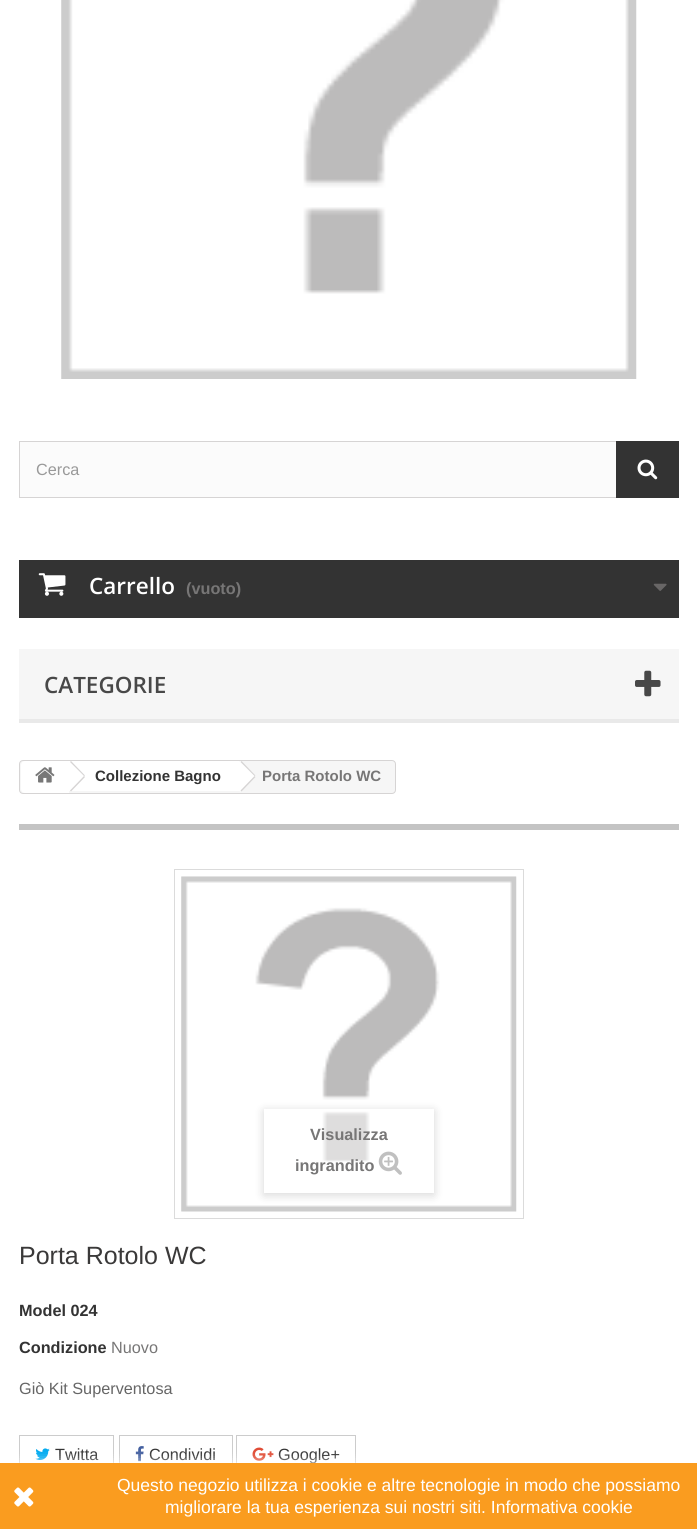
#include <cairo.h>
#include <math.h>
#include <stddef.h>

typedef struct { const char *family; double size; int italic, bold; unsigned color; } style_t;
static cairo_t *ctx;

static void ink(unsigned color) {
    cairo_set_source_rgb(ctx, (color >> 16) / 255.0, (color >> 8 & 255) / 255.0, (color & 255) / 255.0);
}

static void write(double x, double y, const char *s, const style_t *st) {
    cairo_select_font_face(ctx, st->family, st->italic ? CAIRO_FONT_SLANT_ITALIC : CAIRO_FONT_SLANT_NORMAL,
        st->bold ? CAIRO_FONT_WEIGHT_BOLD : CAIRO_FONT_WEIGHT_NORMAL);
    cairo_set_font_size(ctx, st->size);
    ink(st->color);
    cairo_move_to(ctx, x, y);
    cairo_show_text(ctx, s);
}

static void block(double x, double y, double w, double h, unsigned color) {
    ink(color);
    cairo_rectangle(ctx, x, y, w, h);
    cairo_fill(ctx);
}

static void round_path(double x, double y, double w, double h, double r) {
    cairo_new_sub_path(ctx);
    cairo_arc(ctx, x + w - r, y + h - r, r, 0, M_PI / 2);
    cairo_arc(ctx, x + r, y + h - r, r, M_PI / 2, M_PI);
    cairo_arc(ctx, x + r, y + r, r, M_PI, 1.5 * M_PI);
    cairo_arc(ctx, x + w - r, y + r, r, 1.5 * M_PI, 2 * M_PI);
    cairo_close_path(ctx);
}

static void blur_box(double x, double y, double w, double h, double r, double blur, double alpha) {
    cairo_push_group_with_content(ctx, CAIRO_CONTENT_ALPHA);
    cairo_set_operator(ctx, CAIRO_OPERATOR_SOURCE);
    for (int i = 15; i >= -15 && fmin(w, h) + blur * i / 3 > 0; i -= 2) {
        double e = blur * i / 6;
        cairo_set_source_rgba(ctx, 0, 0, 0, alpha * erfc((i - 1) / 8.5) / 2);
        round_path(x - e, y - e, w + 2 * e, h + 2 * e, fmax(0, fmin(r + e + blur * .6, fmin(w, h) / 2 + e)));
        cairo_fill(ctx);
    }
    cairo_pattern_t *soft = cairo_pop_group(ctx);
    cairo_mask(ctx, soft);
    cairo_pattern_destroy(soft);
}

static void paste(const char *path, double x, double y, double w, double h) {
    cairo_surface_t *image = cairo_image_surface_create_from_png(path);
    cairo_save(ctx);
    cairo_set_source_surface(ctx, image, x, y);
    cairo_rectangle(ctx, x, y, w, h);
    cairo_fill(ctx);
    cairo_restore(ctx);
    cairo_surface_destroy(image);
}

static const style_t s1 = {"Liberation Sans", 16.25, 0, 0, 0x999999};
static const style_t s2 = {"Open Sans SemiBold", 22.5, 0, 0, 0xffffff};
static const style_t s3 = {"Liberation Sans", 16.25, 0, 1, 0x777676};
static const style_t s4 = {"Open Sans SemiBold", 22.5, 0, 0, 0x484848};
static const style_t s5 = {"Liberation Sans", 15, 0, 1, 0x333333};
static const style_t s6 = {"Liberation Sans", 15, 0, 1, 0x777676};
static const style_t s7 = {"Liberation Sans", 25, 0, 0, 0x3a3939};
static const style_t s8 = {"Liberation Sans", 16.25, 0, 1, 0x333333};
static const style_t s9 = {"Liberation Sans", 16.25, 0, 0, 0x777676};
static const style_t s10 = {"Liberation Sans", 16.25, 0, 0, 0x666666};
static const style_t s11 = {"Liberation Sans", 16.25, 0, 0, 0x333333};
static const style_t s12 = {"Liberation Sans", 17.5, 0, 0, 0xffffff};

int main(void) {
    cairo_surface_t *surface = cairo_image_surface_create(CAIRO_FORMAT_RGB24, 697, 1529);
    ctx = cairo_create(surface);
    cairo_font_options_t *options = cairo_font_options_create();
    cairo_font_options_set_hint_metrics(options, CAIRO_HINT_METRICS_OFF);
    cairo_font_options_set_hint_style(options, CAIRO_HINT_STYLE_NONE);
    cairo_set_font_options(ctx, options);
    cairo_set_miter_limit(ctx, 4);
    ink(0xffffff);
    cairo_paint(ctx);
    paste("pic1.png", 61, 0, 576, 379);
    block(20, 442, 596, 55, 0xfbfbfb);
    cairo_rectangle(ctx, 19.5, 441.5, 659, 56);
    ink(0xd6d4d4);
    cairo_set_line_width(ctx, 1);
    cairo_stroke(ctx);
    write(36, 475, "Cerca", &s1);
    block(616, 441, 63, 57, 0x333333);
    paste("pic2.png", 637, 459, 21, 21);
    block(19, 560, 660, 58, 0x333333);
    paste("pic3.png", 38, 573, 28, 23);
    write(89, 594, "Carrello", &s2);
    write(186, 594, "(vuoto)", &s3);
    paste("pic4.png", 653, 583, 14, 8);
    block(19, 649, 660, 70, 0xf6f6f6);
    block(19, 719, 660, 4, 0xe9e9e9);
    write(44, 693, "CATEGORIE", &s4);
    paste("pic5.png", 635, 670, 26, 27);
    ink(0xf6f6f6);
    round_path(19.5, 760.5, 376, 33, 3.5);
    cairo_fill_preserve(ctx);
    ink(0xd6d4d4);
    cairo_stroke(ctx);
    ink(0xffffff);
    cairo_new_path(ctx);
    cairo_move_to(ctx, 25, 761);
    cairo_line_to(ctx, 69, 761);
    cairo_line_to(ctx, 69, 793);
    cairo_line_to(ctx, 25, 793);
    cairo_curve_to(ctx, 23, 793, 21, 791, 21, 789);
    cairo_line_to(ctx, 21, 765);
    cairo_curve_to(ctx, 21, 763, 23, 761, 25, 761);
    cairo_close_path(ctx);
    cairo_fill(ctx);
    paste("pic6.png", 35, 767, 20, 16);
    block(69, 761, 170, 30, 0xffffff);
    ink(0xd6d4d4);
    cairo_new_path(ctx);
    cairo_move_to(ctx, 71, 761);
    cairo_line_to(ctx, 85, 775.5);
    cairo_line_to(ctx, 84, 776);
    cairo_line_to(ctx, 70, 762);
    cairo_close_path(ctx);
    cairo_move_to(ctx, 84, 776);
    cairo_line_to(ctx, 85, 777);
    cairo_line_to(ctx, 71, 791.5);
    cairo_line_to(ctx, 70, 790.5);
    cairo_close_path(ctx);
    cairo_fill(ctx);
    write(95, 781, "Collezione Bagno", &s5);
    ink(0xffffff);
    cairo_new_path(ctx);
    cairo_move_to(ctx, 242, 762);
    cairo_line_to(ctx, 254.5, 774.5);
    cairo_curve_to(ctx, 255.5, 775.5, 255.5, 777, 254.5, 778);
    cairo_line_to(ctx, 242, 790.5);
    cairo_curve_to(ctx, 241, 791.5, 239.5, 791.5, 238.5, 790.5);
    cairo_line_to(ctx, 226.5, 778);
    cairo_curve_to(ctx, 225.5, 777, 225.5, 775.5, 226.5, 774.5);
    cairo_line_to(ctx, 238.5, 762);
    cairo_curve_to(ctx, 239.5, 761, 241, 761, 242, 762);
    cairo_close_path(ctx);
    cairo_fill(ctx);
    ink(0xd6d4d4);
    cairo_new_path(ctx);
    cairo_move_to(ctx, 241.5, 761);
    cairo_line_to(ctx, 255.5, 775.5);
    cairo_line_to(ctx, 254.5, 776);
    cairo_line_to(ctx, 240.5, 762);
    cairo_close_path(ctx);
    cairo_move_to(ctx, 254.5, 776);
    cairo_line_to(ctx, 255.5, 777);
    cairo_line_to(ctx, 241.5, 791.5);
    cairo_line_to(ctx, 240.5, 790.5);
    cairo_close_path(ctx);
    cairo_fill(ctx);
    write(262, 781, "Porta Rotolo WC", &s6);
    block(19, 824, 660, 6, 0xc4c4c4);
    cairo_rectangle(ctx, 174.5, 869.5, 349, 349);
    ink(0xdbdbdb);
    cairo_stroke(ctx);
    block(181, 876, 335, 335, 0xfbfbfb);
    paste("pic7.png", 181, 876, 336, 336);
    cairo_save(ctx);
    cairo_set_fill_rule(ctx, CAIRO_FILL_RULE_EVEN_ODD);
    cairo_new_path(ctx);
    cairo_move_to(ctx, 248, 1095);
    cairo_line_to(ctx, 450, 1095);
    cairo_line_to(ctx, 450, 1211);
    cairo_line_to(ctx, 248, 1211);
    cairo_close_path(ctx);
    cairo_move_to(ctx, 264, 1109);
    cairo_line_to(ctx, 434, 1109);
    cairo_line_to(ctx, 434, 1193);
    cairo_line_to(ctx, 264, 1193);
    cairo_close_path(ctx);
    cairo_clip(ctx);
    ink(0x000000);
    blur_box(264, 1111, 170, 84, 0, 5, 0.16);
    cairo_restore(ctx);
    cairo_set_source_rgba(ctx, 1, 1, 1, 0.5);
    cairo_rectangle(ctx, 264, 1111, 170, 82);
    cairo_fill(ctx);
    write(310, 1140, "Visualizza", &s3);
    write(295, 1171, "ingrandito", &s3);
    paste("pic8.png", 378, 1151, 24, 24);
    write(19, 1264, "Porta Rotolo WC", &s7);
    write(19, 1316, "Model 024", &s8);
    write(19, 1353, "Condizione", &s8);
    write(111, 1353, "Nuovo", &s9);
    write(19, 1394, "Giò Kit Superventosa", &s10);
    cairo_rectangle(ctx, 19.5, 1435.5, 94, 40);
    ink(0xcccccc);
    cairo_stroke(ctx);
    paste("pic9.png", 35, 1448, 15, 12);
    write(55, 1460, "Twitta", &s11);
    cairo_rectangle(ctx, 119.5, 1435.5, 113, 40);
    ink(0xcccccc);
    cairo_stroke(ctx);
    paste("pic10.png", 135, 1446, 9, 16);
    write(149, 1460, "Condividi", &s11);
    cairo_rectangle(ctx, 236.5, 1435.5, 119, 40);
    ink(0xcccccc);
    cairo_stroke(ctx);
    paste("pic11.png", 252, 1447, 22, 14);
    write(278, 1460, "Google+", &s11);
    ink(0xffffff);
    blur_box(0, 1463, 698, 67, 0, 6, 1);
    block(0, 1463, 697, 66, 0xfa9c1f);
    paste("pic12.png", 14, 1487, 20, 20);
    write(117, 1491, "Questo negozio utilizza i cookie e altre tecnologie in modo che possiamo", &s12);
    write(165, 1513, "migliorare la tua esperienza sui nostri siti. Informativa cookie", &s12);
    cairo_surface_write_to_png(surface, "screenshot.png");
    cairo_font_options_destroy(options);
    cairo_destroy(ctx);
    cairo_surface_destroy(surface);
    return 0;
}
